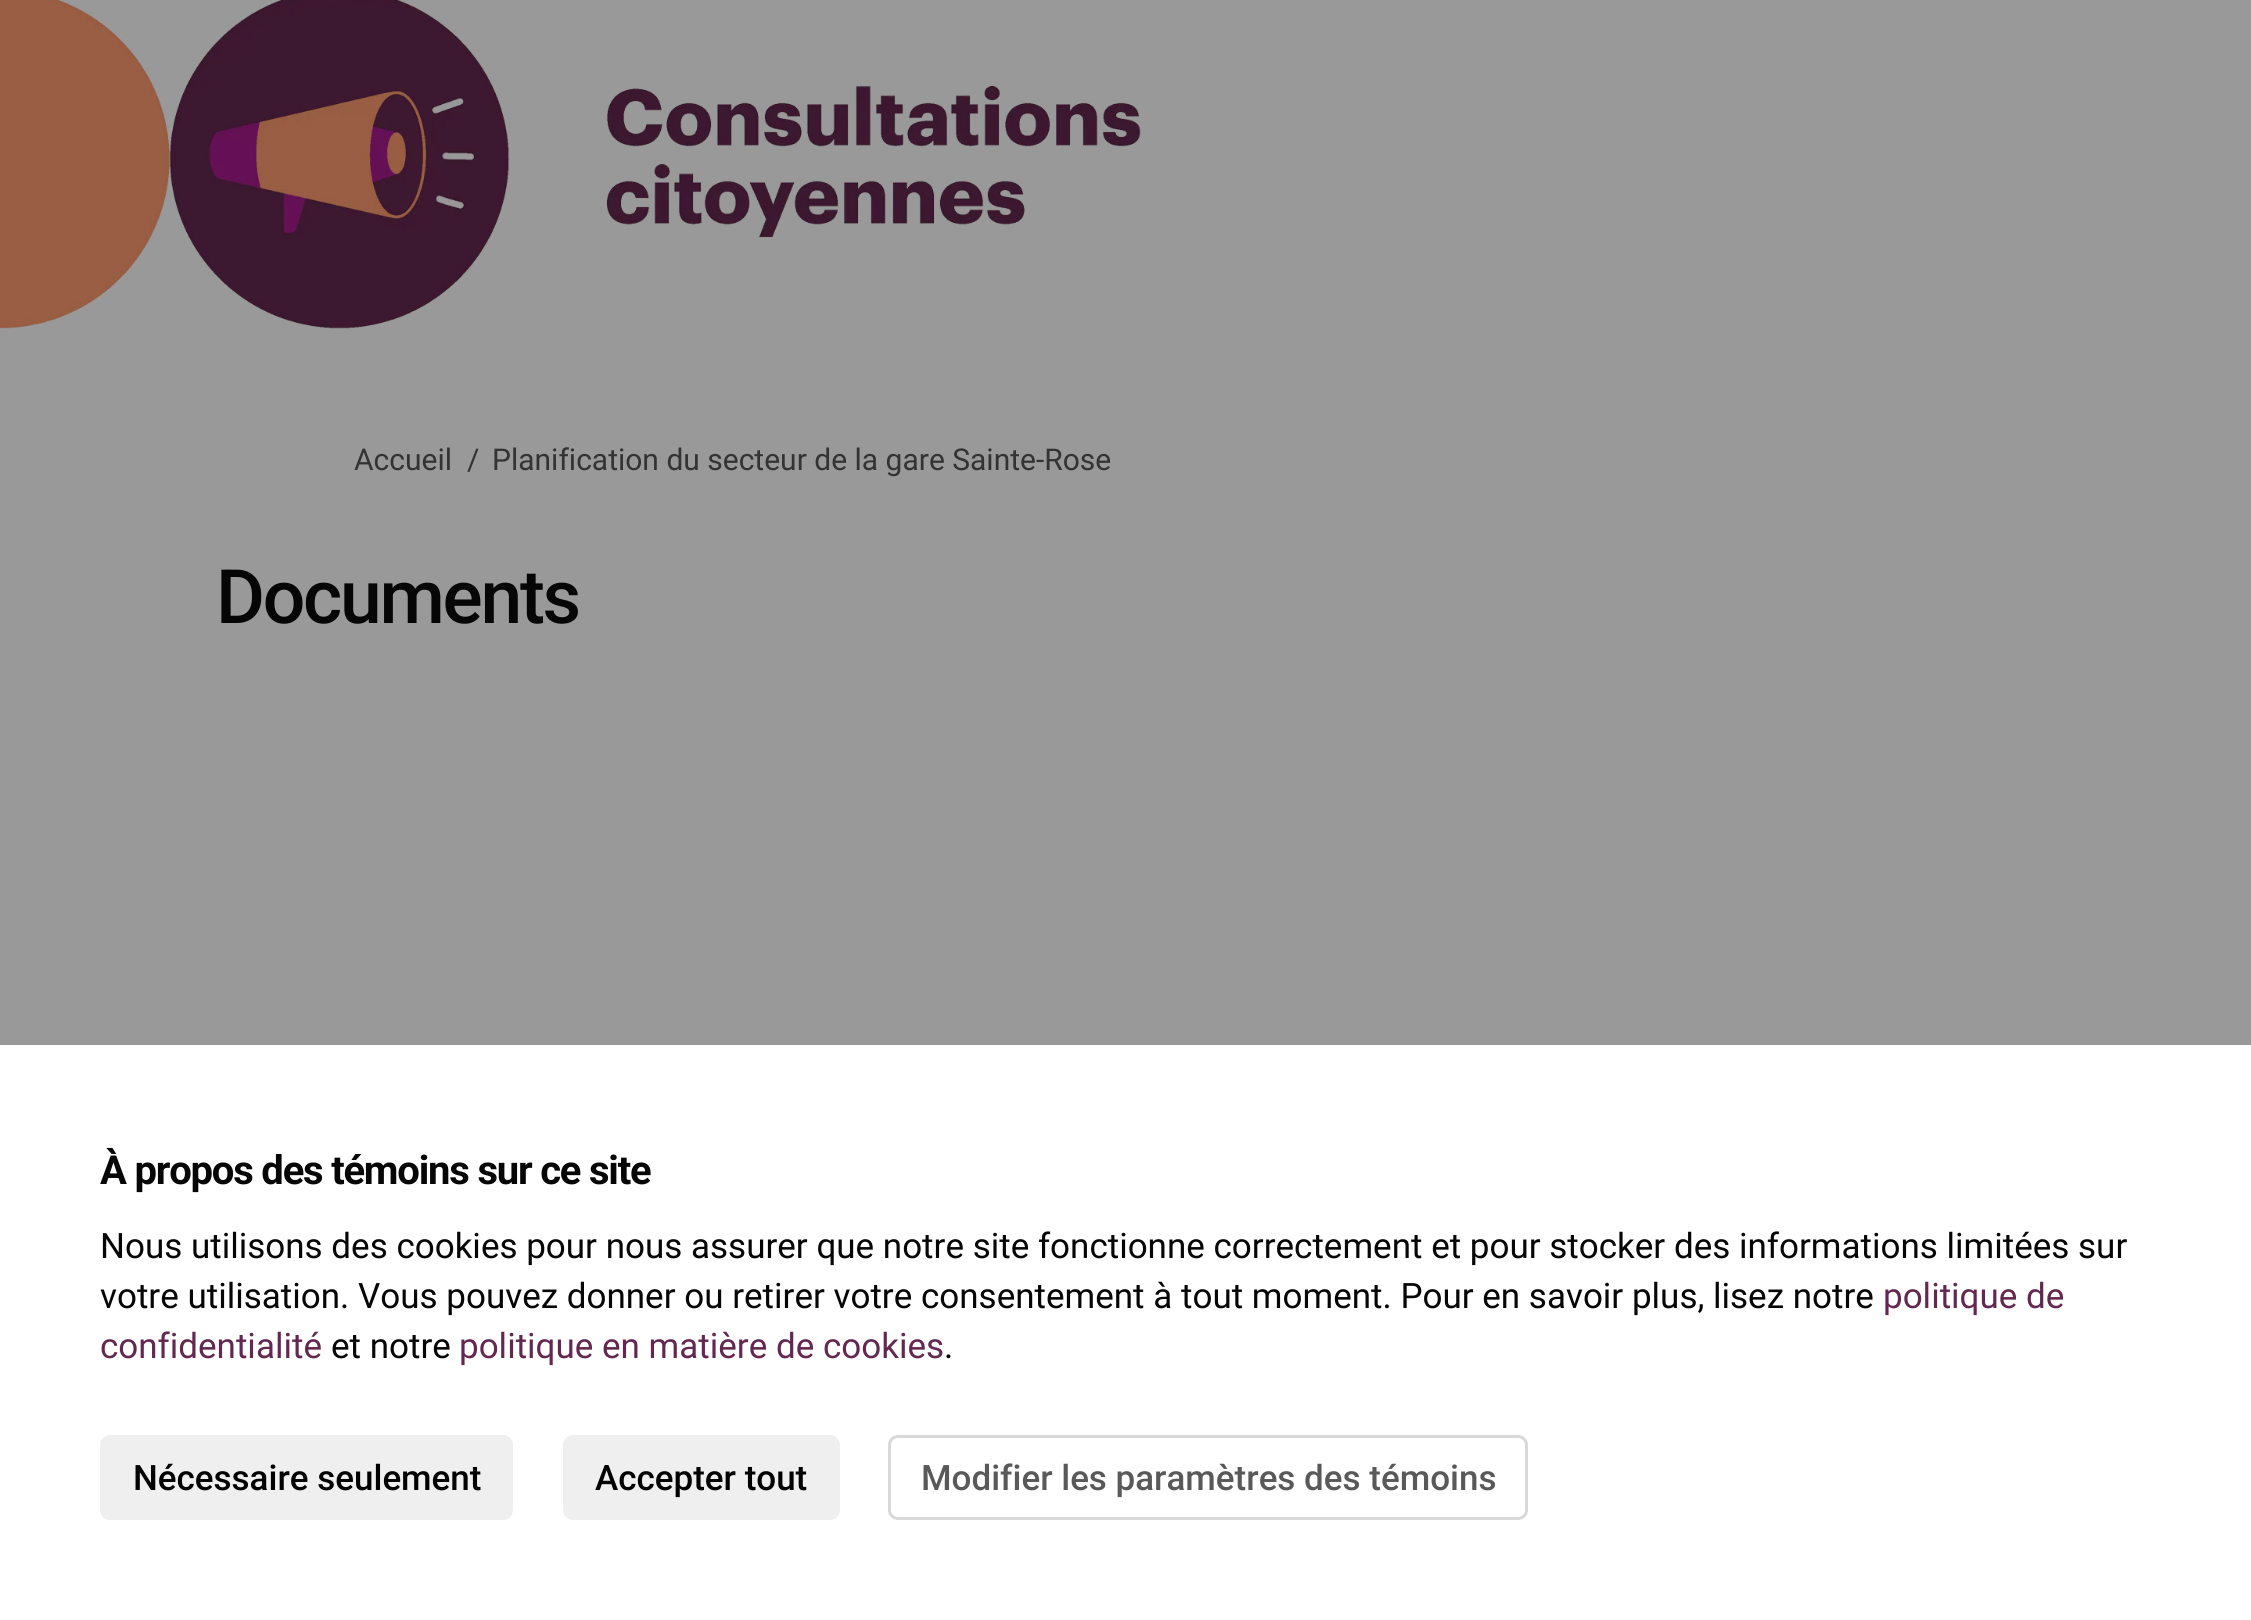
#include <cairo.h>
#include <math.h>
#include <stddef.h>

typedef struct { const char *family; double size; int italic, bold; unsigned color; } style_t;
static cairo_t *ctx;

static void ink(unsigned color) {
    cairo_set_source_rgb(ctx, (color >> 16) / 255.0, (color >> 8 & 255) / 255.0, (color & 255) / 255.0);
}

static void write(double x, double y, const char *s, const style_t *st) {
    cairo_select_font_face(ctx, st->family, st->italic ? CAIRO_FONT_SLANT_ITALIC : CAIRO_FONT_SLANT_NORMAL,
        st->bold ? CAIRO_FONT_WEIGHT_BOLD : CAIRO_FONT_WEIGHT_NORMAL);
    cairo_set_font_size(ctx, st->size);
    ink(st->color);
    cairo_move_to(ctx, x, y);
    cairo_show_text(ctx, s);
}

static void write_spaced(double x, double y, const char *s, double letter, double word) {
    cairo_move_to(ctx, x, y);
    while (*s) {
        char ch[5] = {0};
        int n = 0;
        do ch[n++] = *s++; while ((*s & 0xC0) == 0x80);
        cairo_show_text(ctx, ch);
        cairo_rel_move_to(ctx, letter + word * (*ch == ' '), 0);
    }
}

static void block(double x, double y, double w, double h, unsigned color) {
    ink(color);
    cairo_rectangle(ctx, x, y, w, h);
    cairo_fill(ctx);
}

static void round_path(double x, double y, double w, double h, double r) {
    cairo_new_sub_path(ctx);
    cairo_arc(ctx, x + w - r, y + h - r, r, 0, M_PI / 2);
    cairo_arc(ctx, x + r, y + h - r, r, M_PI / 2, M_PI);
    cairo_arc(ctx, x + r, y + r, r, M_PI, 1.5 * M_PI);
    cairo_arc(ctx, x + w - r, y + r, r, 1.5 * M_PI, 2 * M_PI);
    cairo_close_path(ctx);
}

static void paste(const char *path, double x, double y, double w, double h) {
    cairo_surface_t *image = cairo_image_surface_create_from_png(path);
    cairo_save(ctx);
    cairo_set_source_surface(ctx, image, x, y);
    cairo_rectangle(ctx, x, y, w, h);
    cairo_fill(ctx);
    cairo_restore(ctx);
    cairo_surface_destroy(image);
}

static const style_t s1 = {"Roboto", 30, 0, 0, 0x333333};
static const style_t s2 = {"Roboto", 35, 0, 0, 0x060606};
static const style_t s3 = {"Roboto", 35, 0, 0, 0x642850};
static const style_t s4 = {"Roboto Medium", 35, 0, 0, 0x000000};
static const style_t s5 = {"Roboto Medium", 35, 0, 0, 0x595959};

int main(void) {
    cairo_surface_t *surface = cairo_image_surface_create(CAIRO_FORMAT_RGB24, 2251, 1620);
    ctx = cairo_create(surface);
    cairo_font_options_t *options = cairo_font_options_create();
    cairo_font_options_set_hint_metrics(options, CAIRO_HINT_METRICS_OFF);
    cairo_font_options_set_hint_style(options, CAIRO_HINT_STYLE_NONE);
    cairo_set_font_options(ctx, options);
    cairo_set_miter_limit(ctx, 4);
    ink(0x999999);
    cairo_paint(ctx);
    paste("pic1.png", 0, 0, 1141, 329);
    write(354, 470, "Accueil", &s1);
    write(467, 470, "/", &s1);
    write(492, 470, "Planification du secteur de la gare Sainte-Rose", &s1);
    cairo_select_font_face(ctx, "Roboto Medium", CAIRO_FONT_SLANT_NORMAL, CAIRO_FONT_WEIGHT_NORMAL);
    cairo_set_font_size(ctx, 75);
    ink(0x060606);
    write_spaced(216, 623, "Documents", -2.25, 0);
    block(0, 1045, 2251, 575, 0xffffff);
    cairo_select_font_face(ctx, "Roboto", CAIRO_FONT_SLANT_NORMAL, CAIRO_FONT_WEIGHT_BOLD);
    cairo_set_font_size(ctx, 40);
    ink(0x060606);
    write_spaced(100, 1184, "À propos des témoins sur ce site", -1.2, 0);
    write(100, 1258, "Nous utilisons des cookies pour nous assurer que notre site fonctionne correctement et pour stocker des informations limitées sur", &s2);
    write(100, 1308, "votre utilisation. Vous pouvez donner ou retirer votre consentement à tout moment. Pour en savoir plus, lisez notre", &s2);
    write(1883, 1308, "politique de", &s3);
    write(100, 1358, "confidentialité", &s3);
    write(331, 1358, "et notre", &s2);
    write(459, 1358, "politique en matière de cookies", &s3);
    write(944, 1358, ".", &s2);
    ink(0xefefef);
    round_path(100, 1435, 413, 85, 10);
    cairo_fill(ctx);
    write(133, 1490, "Nécessaire seulement", &s4);
    ink(0xefefef);
    round_path(563, 1435, 277, 85, 10);
    cairo_fill(ctx);
    write(595, 1490, "Accepter tout", &s4);
    round_path(889.5, 1436.5, 637, 82, 8.5);
    ink(0xd9d9d9);
    cairo_set_line_width(ctx, 3);
    cairo_stroke(ctx);
    write(921, 1490, "Modifier les paramètres des témoins", &s5);
    cairo_surface_write_to_png(surface, "screenshot.png");
    cairo_font_options_destroy(options);
    cairo_destroy(ctx);
    cairo_surface_destroy(surface);
    return 0;
}
